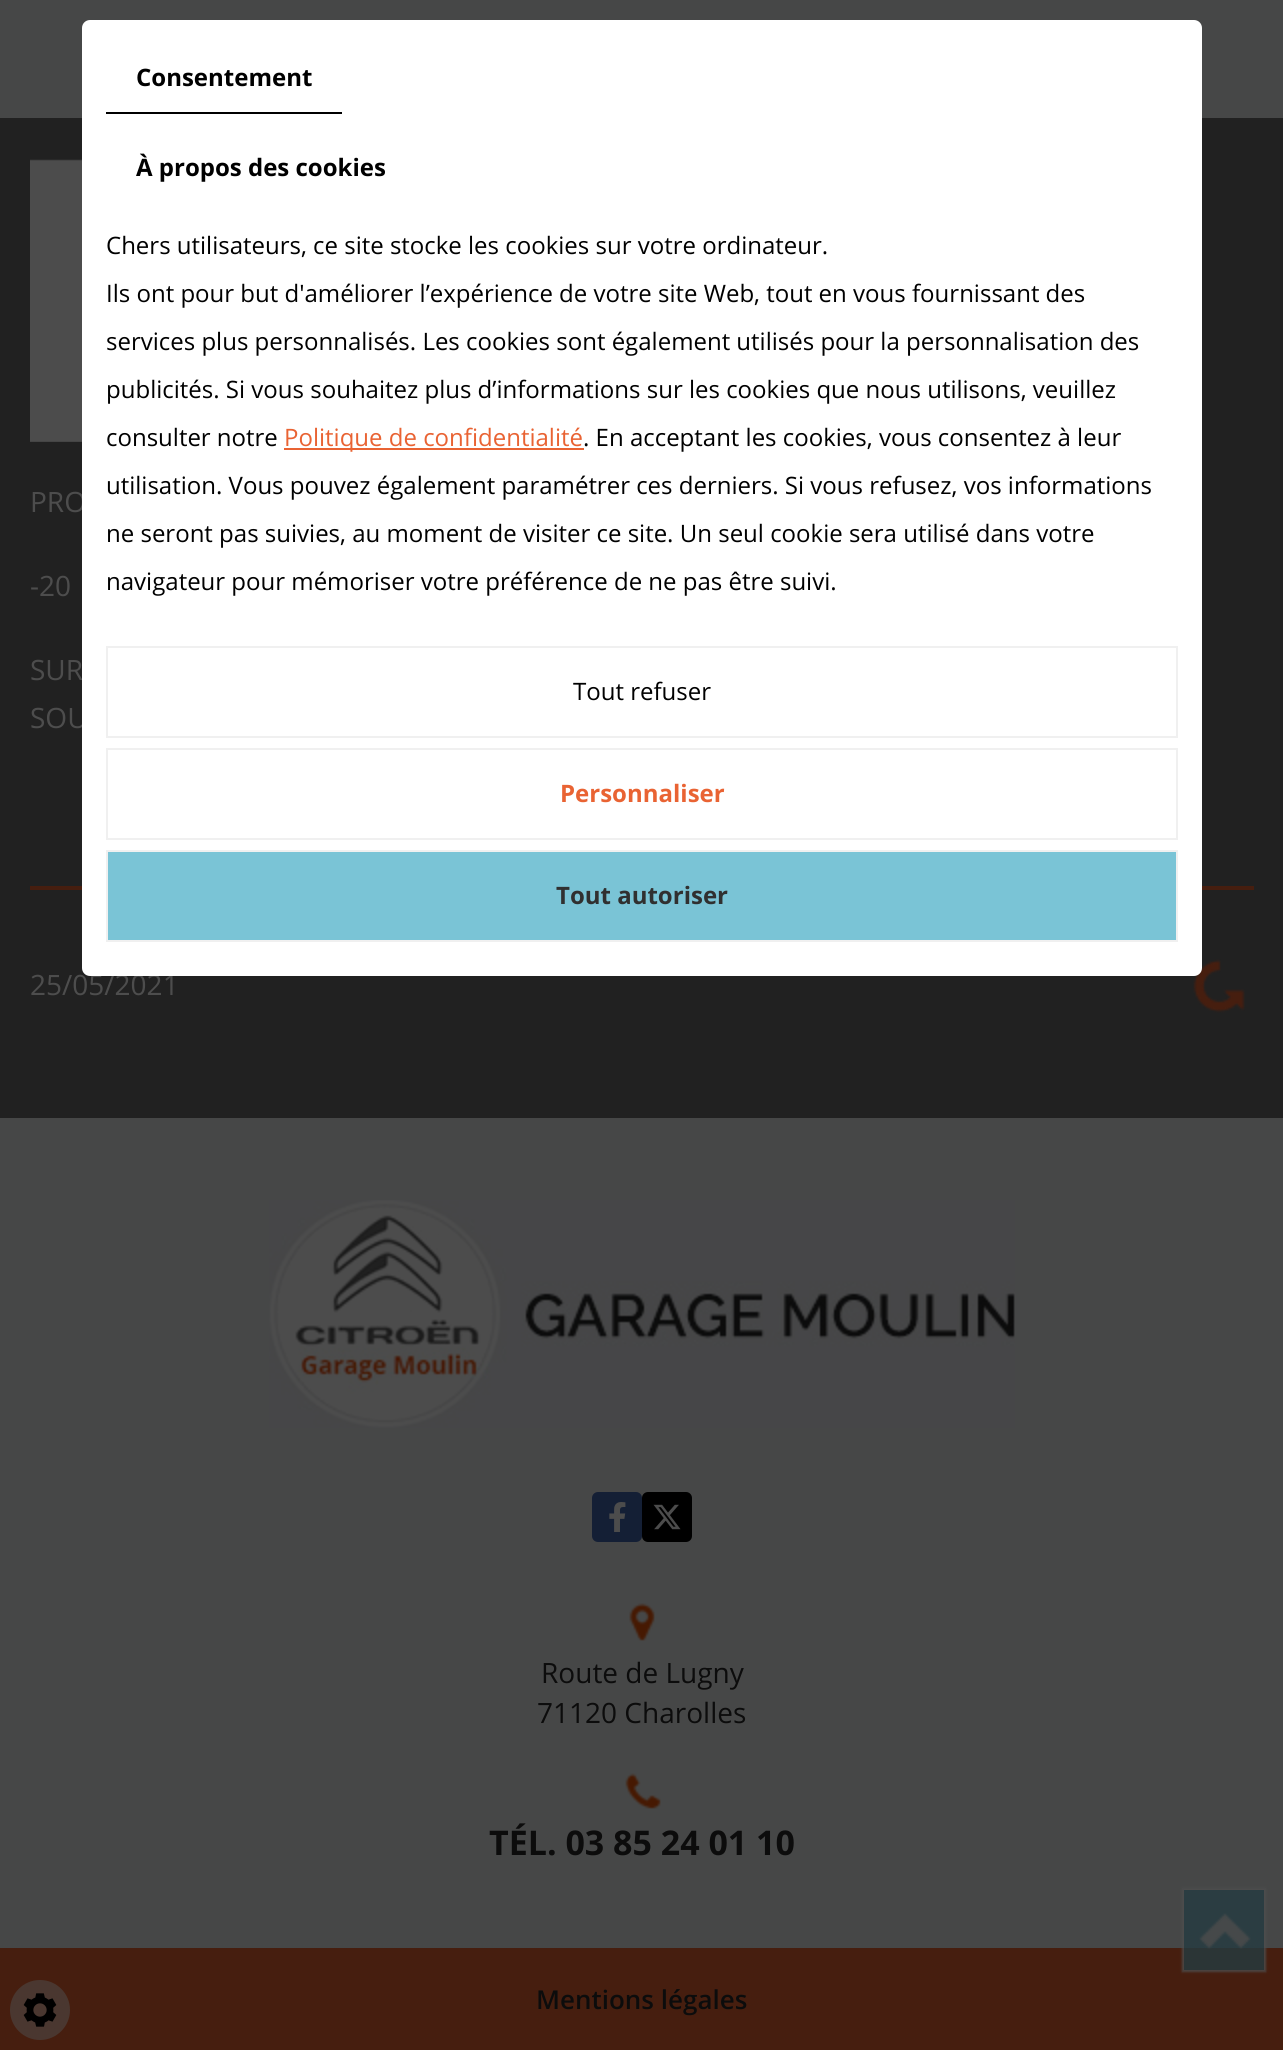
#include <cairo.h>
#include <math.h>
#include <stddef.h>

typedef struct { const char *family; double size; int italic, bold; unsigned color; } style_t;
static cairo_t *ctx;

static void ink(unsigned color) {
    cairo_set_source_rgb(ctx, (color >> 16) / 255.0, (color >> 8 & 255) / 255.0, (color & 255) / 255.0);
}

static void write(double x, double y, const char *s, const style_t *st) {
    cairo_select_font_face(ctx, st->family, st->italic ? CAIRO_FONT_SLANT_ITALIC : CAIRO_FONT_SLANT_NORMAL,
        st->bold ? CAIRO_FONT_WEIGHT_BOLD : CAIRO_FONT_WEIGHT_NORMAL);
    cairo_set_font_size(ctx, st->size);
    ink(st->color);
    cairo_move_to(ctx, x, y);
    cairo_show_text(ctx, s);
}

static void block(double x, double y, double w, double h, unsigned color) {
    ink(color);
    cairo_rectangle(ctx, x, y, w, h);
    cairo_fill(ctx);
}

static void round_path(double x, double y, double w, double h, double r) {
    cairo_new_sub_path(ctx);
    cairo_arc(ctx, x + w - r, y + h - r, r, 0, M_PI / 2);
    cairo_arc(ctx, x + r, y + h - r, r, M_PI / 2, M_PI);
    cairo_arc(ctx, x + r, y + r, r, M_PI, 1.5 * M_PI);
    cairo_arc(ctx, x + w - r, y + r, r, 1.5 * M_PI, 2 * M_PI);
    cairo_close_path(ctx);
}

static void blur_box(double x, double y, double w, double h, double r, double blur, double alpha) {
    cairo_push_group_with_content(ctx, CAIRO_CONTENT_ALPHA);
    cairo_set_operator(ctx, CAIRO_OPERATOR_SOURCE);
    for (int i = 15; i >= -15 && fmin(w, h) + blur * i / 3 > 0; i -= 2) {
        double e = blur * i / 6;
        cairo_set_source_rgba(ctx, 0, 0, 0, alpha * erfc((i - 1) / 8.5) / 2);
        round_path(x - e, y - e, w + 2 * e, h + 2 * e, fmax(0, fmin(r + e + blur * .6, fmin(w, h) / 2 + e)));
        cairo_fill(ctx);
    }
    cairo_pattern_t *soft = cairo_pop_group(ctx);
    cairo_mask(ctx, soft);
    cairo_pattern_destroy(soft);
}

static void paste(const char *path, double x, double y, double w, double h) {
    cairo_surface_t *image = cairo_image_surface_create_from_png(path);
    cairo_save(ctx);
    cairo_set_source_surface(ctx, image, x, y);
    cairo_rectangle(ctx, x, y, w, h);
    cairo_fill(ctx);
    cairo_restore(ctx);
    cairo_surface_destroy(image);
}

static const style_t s1 = {"Open Sans", 28, 0, 0, 0x4d4d4d};
static const style_t s2 = {"Open Sans", 24, 0, 1, 0x000000};
static const style_t s3 = {"Open Sans", 24, 0, 0, 0x000000};
static const style_t s4 = {"Open Sans", 24, 0, 0, 0xe96333};
static const style_t s5 = {"Open Sans", 24, 0, 1, 0xe96333};
static const style_t s6 = {"Open Sans", 24, 0, 1, 0x303030};
static const style_t s7 = {"Open Sans", 28, 0, 0, 0x0c0c0c};
static const style_t s8 = {"Open Sans", 34, 0, 1, 0x0c0c0c};
static const style_t s9 = {"Open Sans SemiBold", 26, 0, 0, 0x0c0c0c};

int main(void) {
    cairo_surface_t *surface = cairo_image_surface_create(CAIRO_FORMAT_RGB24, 1283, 2050);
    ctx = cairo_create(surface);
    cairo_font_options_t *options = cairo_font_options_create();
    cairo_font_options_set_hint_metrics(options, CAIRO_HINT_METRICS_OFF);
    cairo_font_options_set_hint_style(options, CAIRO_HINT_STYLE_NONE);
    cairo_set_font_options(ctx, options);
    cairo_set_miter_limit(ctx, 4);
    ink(0x212121);
    cairo_paint(ctx);
    block(0, 0, 1283, 118, 0x464747);
    paste("pic1.png", 30, 159, 52, 283);
    write(30, 512, "PRO", &s1);
    write(30, 596, "-20", &s1);
    write(30, 680, "SUR", &s1);
    write(30, 728, "SOU", &s1);
    block(30, 886, 1224, 4, 0x461e0f);
    write(30, 995, "25/05/2021", &s1);
    paste("pic2.png", 1193, 959, 52, 54);
    ink(0xffffff);
    round_path(82, 20, 1120, 956, 8);
    cairo_fill(ctx);
    block(106, 112, 236, 2, 0x000000);
    write(136, 86, "Consentement", &s2);
    write(136, 176, "À propos des cookies", &s2);
    write(106, 254, "Chers utilisateurs, ce site stocke les cookies sur votre ordinateur.", &s3);
    write(106, 302, "Ils ont pour but d'améliorer l’expérience de votre site Web, tout en vous fournissant des", &s3);
    write(106, 350, "services plus personnalisés. Les cookies sont également utilisés pour la personnalisation des", &s3);
    write(106, 398, "publicités. Si vous souhaitez plus d’informations sur les cookies que nous utilisons, veuillez", &s3);
    write(106, 446, "consulter notre", &s3);
    block(284, 448, 300, 2, 0xe96333);
    write(284, 446, "Politique de confidentialité", &s4);
    write(583, 446, ". En acceptant les cookies, vous consentez à leur", &s3);
    write(106, 494, "utilisation. Vous pouvez également paramétrer ces derniers. Si vous refusez, vos informations", &s3);
    write(106, 542, "ne seront pas suivies, au moment de visiter ce site. Un seul cookie sera utilisé dans votre", &s3);
    write(106, 590, "navigateur pour mémoriser votre préférence de ne pas être suivi.", &s3);
    cairo_rectangle(ctx, 107, 647, 1070, 90);
    ink(0xf0f0f0);
    cairo_stroke(ctx);
    write(573, 700, "Tout refuser", &s3);
    cairo_rectangle(ctx, 107, 749, 1070, 90);
    ink(0xf0f0f0);
    cairo_stroke(ctx);
    write(560, 802, "Personnaliser", &s5);
    ink(0x7ac4d6);
    cairo_rectangle(ctx, 107, 851, 1070, 90);
    cairo_fill_preserve(ctx);
    ink(0xf0f0f0);
    cairo_stroke(ctx);
    write(556, 904, "Tout autoriser", &s6);
    block(0, 1118, 1283, 830, 0x464747);
    block(1184, 1890, 80, 58, 0x2b3d42);
    paste("pic3.png", 269, 1200, 746, 228);
    ink(0x141f35);
    round_path(592, 1492, 50, 50, 6);
    cairo_fill(ctx);
    paste("pic4.png", 609, 1502, 17, 30);
    ink(0x000000);
    round_path(642, 1492, 50, 50, 6);
    cairo_fill(ctx);
    paste("pic5.png", 653, 1504, 28, 26);
    paste("pic6.png", 629, 1603, 26, 38);
    write(541, 1683, "Route de Lugny", &s7);
    write(537, 1723, "71120 Charolles", &s7);
    paste("pic7.png", 625, 1773, 36, 36);
    write(489, 1855, "TÉL. 03 85 24 01 10", &s8);
    block(0, 1948, 1283, 102, 0x461e0f);
    block(1184, 1948, 80, 22, 0x2b3536);
    write(536, 2009, "Mentions légales", &s9);
    cairo_save(ctx);
    cairo_set_fill_rule(ctx, CAIRO_FILL_RULE_EVEN_ODD);
    cairo_new_path(ctx);
    cairo_move_to(ctx, 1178, 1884);
    cairo_line_to(ctx, 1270, 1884);
    cairo_line_to(ctx, 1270, 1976);
    cairo_line_to(ctx, 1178, 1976);
    cairo_close_path(ctx);
    cairo_move_to(ctx, 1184, 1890);
    cairo_line_to(ctx, 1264, 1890);
    cairo_line_to(ctx, 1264, 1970);
    cairo_line_to(ctx, 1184, 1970);
    cairo_close_path(ctx);
    cairo_clip(ctx);
    ink(0x4d4d4d);
    blur_box(1182, 1888, 84, 84, 0, 1, 0.8);
    cairo_restore(ctx);
    paste("pic8.png", 1199, 1913, 52, 36);
    ink(0x4a3730);
    cairo_arc(ctx, 40, 2010, 30, 0, 2 * M_PI);
    cairo_fill(ctx);
    paste("pic9.png", 23, 1993, 34, 34);
    cairo_surface_write_to_png(surface, "screenshot.png");
    cairo_font_options_destroy(options);
    cairo_destroy(ctx);
    cairo_surface_destroy(surface);
    return 0;
}
